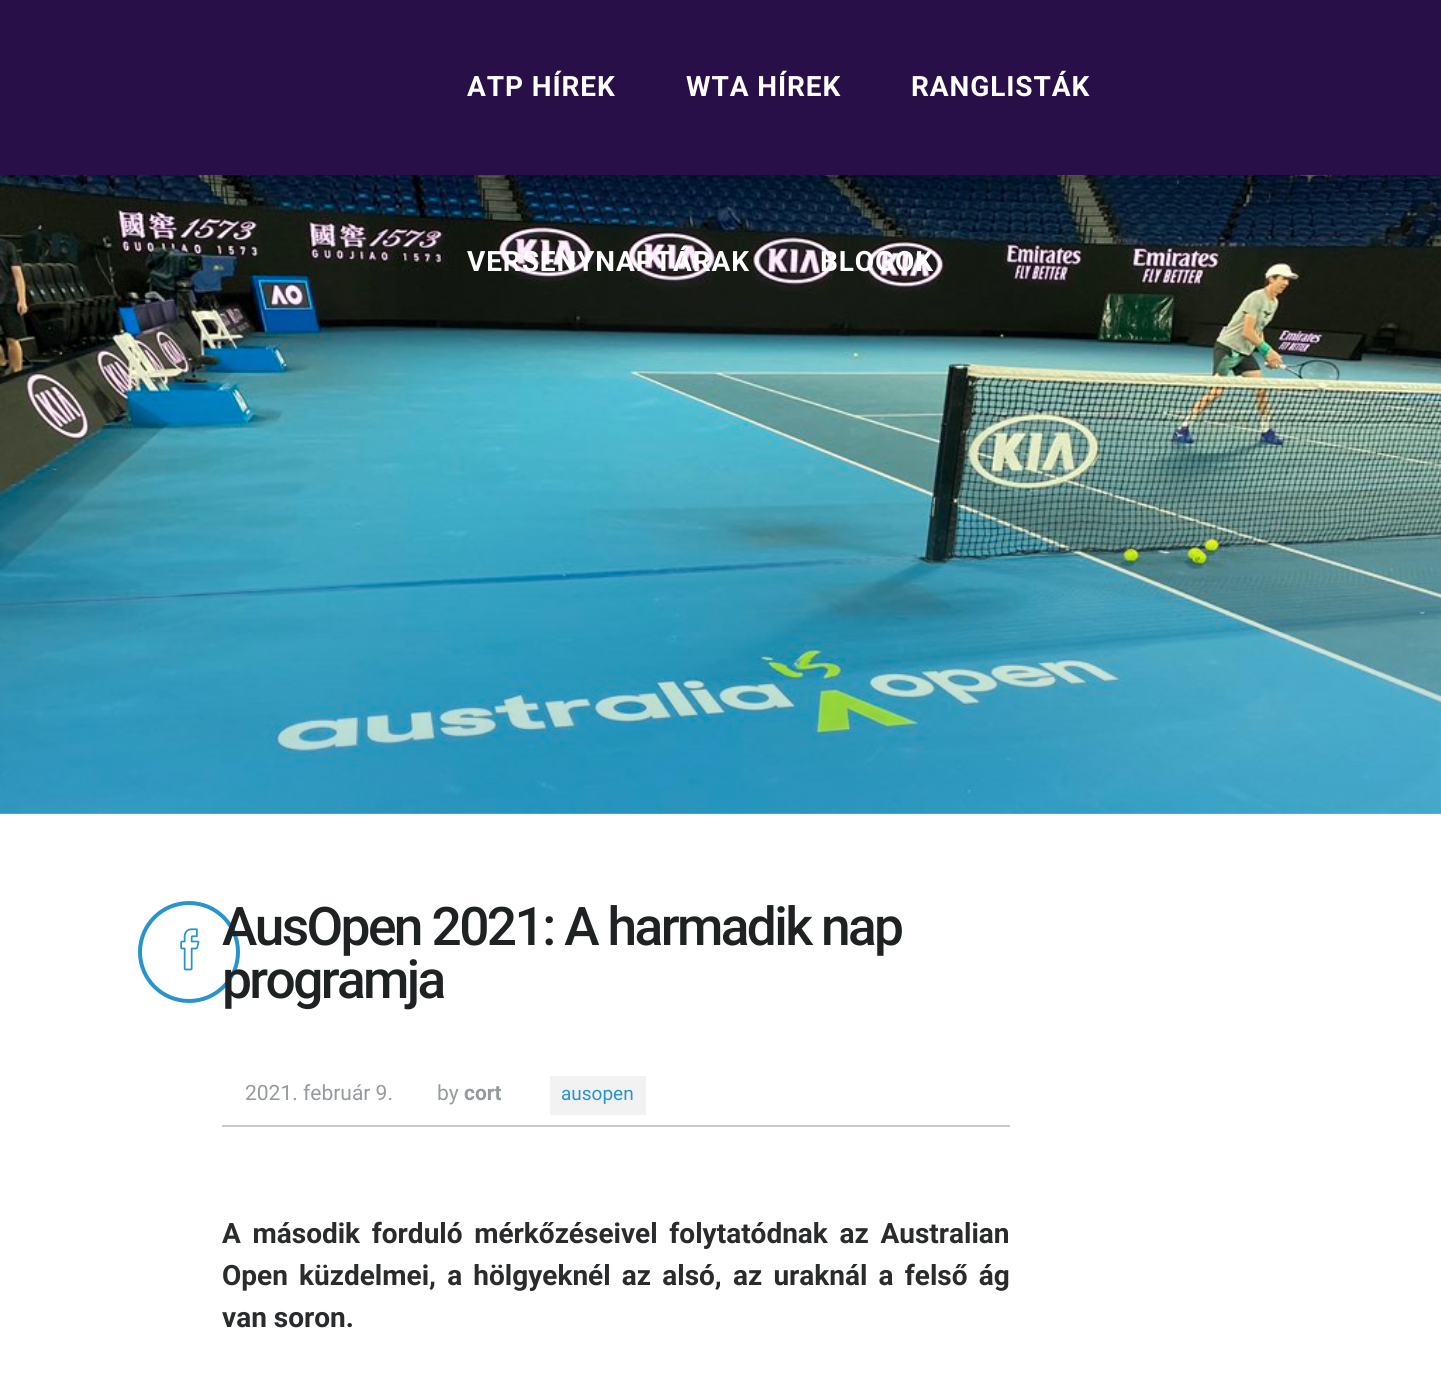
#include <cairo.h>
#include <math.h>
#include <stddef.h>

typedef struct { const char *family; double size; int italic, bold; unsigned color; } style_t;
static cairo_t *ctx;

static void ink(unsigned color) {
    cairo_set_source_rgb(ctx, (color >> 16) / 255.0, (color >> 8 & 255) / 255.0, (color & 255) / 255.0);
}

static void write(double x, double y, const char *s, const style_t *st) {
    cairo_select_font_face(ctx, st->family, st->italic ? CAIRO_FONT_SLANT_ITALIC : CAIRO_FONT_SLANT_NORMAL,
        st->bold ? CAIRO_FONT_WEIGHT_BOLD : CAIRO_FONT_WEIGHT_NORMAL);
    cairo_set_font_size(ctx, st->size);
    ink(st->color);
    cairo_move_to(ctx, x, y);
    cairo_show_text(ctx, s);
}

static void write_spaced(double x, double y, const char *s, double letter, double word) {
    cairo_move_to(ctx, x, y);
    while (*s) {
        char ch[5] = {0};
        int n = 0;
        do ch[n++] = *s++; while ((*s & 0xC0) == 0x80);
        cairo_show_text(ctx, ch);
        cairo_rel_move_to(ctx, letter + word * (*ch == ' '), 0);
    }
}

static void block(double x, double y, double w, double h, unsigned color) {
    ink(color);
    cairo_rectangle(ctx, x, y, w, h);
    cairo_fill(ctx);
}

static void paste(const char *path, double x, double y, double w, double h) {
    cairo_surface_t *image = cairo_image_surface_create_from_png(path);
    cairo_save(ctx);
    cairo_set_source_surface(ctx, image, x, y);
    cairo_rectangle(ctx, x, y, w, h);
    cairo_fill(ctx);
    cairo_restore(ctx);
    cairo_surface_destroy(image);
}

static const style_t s1 = {"Roboto", 21, 0, 0, 0x969b9d};
static const style_t s2 = {"Roboto", 21, 0, 1, 0x969b9d};
static const style_t s3 = {"Roboto", 19, 0, 0, 0x2794ce};
static const style_t s4 = {"Roboto", 28, 0, 1, 0x292b2c};

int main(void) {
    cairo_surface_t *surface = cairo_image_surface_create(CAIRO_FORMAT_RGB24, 1441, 1379);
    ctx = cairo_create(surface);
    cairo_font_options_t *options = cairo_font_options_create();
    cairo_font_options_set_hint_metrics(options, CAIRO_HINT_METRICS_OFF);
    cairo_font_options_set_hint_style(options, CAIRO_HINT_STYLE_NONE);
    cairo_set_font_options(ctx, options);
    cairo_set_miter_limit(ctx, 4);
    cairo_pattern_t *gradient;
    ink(0xffffff);
    cairo_paint(ctx);
    block(0, 0, 1441, 175, 0x280f47);
    cairo_select_font_face(ctx, "Roboto", CAIRO_FONT_SLANT_NORMAL, CAIRO_FONT_WEIGHT_BOLD);
    cairo_set_font_size(ctx, 28);
    ink(0xffffff);
    write_spaced(467, 96, "ATP HÍREK", 0.9, 0);
    write_spaced(686, 96, "WTA HÍREK", 0.9, 0);
    write_spaced(911, 96, "RANGLISTÁK", 0.9, 0);
    paste("pic1.png", 0, 175, 1441, 639);
    write_spaced(467, 271, "VERSENYNAPTÁRAK", 0.9, 0);
    write_spaced(820, 271, "BLOGOK", 0.9, 0);
    gradient = cairo_pattern_create_linear(721, 114, 721, 814);
    cairo_pattern_add_color_stop_rgba(gradient, 0, 0.153, 0.58, 0.808, 0);
    cairo_pattern_add_color_stop_rgba(gradient, 0.5, 0.153, 0.58, 0.808, 0);
    cairo_pattern_add_color_stop_rgba(gradient, 1, 0.153, 0.58, 0.808, 0.4);
    cairo_set_source(ctx, gradient);
    cairo_pattern_destroy(gradient);
    cairo_rectangle(ctx, 0, 483, 1441, 331);
    cairo_fill(ctx);
    cairo_arc(ctx, 189, 952, 49, 0, 2 * M_PI);
    ink(0x2794ce);
    cairo_set_line_width(ctx, 4);
    cairo_stroke(ctx);
    paste("pic2.png", 180, 928, 20, 43);
    cairo_select_font_face(ctx, "Roboto Medium", CAIRO_FONT_SLANT_NORMAL, CAIRO_FONT_WEIGHT_NORMAL);
    cairo_set_font_size(ctx, 53.25);
    ink(0x1f2223);
    write_spaced(222, 945, "AusOpen 2021: A harmadik nap", -2.6, 0);
    write_spaced(222, 998, "programja", -2.6, 0);
    block(222, 1125, 788, 2, 0xc7c8c8);
    write(245, 1100, "2021. február 9.", &s1);
    write(437, 1100, "by", &s1);
    write(464, 1100, "cort", &s2);
    block(550, 1076, 96, 39, 0xf2f2f2);
    write(561, 1100, "ausopen", &s3);
    cairo_select_font_face(ctx, "Roboto", CAIRO_FONT_SLANT_NORMAL, CAIRO_FONT_WEIGHT_BOLD);
    cairo_set_font_size(ctx, 28);
    ink(0x292b2c);
    write_spaced(222, 1243, "A második forduló mérkőzéseivel folytatódnak az Australian", 0, 4.75);
    write_spaced(222, 1285, "Open küzdelmei, a hölgyeknél az alsó, az uraknál a felső ág", 0, 4.25);
    write(222, 1327, "van soron.", &s4);
    cairo_surface_write_to_png(surface, "screenshot.png");
    cairo_font_options_destroy(options);
    cairo_destroy(ctx);
    cairo_surface_destroy(surface);
    return 0;
}
